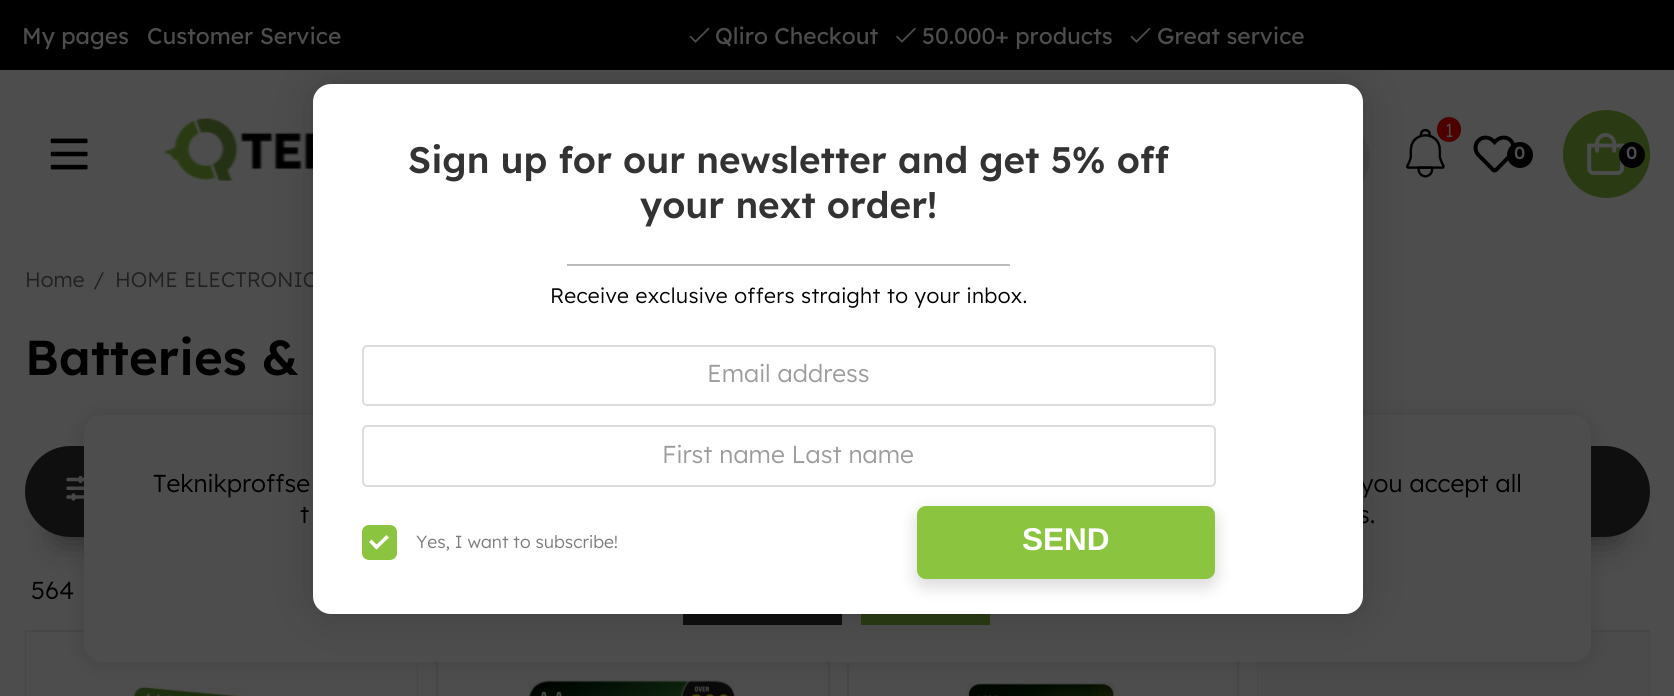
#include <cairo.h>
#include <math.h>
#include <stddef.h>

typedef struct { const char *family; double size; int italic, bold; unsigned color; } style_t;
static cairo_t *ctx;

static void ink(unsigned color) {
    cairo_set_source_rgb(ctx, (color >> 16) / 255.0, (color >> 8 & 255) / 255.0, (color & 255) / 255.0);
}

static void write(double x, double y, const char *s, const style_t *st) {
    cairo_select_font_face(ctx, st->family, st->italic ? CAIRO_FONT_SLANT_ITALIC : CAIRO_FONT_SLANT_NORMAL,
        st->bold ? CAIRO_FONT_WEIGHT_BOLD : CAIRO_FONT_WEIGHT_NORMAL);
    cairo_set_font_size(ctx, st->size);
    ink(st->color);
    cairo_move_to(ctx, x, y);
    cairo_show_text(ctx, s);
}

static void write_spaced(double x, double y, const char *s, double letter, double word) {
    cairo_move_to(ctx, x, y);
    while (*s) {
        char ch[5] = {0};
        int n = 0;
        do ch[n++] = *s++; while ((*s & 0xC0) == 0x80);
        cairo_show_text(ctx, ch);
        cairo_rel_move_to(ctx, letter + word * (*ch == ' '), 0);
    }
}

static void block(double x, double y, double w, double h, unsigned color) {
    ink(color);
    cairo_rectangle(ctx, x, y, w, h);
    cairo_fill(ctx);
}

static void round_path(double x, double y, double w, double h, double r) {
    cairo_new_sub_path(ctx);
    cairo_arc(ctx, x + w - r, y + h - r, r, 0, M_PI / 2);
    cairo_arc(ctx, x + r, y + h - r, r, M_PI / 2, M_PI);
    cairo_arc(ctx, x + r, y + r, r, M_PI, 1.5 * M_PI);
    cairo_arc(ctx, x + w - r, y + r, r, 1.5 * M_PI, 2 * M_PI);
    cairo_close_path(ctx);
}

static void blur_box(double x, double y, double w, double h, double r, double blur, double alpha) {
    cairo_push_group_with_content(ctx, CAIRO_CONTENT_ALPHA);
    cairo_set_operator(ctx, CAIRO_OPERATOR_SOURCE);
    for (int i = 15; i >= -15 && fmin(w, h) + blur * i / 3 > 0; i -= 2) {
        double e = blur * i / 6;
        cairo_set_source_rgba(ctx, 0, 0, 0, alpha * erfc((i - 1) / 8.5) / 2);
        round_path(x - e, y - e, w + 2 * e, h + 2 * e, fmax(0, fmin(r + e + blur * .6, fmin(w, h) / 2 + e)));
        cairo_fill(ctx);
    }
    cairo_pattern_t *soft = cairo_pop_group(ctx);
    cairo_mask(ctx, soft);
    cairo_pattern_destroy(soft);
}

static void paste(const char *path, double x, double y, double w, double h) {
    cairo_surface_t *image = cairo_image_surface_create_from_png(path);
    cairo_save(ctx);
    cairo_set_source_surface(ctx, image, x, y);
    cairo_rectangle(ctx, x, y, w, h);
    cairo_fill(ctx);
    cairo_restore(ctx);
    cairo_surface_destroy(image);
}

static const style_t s1 = {"Lexend Medium", 22.75, 0, 0, 0x4d4d4d};
static const style_t s2 = {"Lexend", 19, 0, 0, 0x4d4d4d};
static const style_t s3 = {"Lexend SemiBold", 17.5, 0, 0, 0x4d4d4d};
static const style_t s4 = {"Lexend", 21, 0, 0, 0x212020};
static const style_t s5 = {"Lexend SemiBold", 49, 0, 0, 0x000000};
static const style_t s6 = {"Lexend", 24.5, 0, 0, 0x000000};
static const style_t s7 = {"Lexend SemiBold", 36.75, 0, 0, 0x333333};
static const style_t s8 = {"Lexend", 24.5, 0, 0, 0x9c9c9c};
static const style_t s9 = {"Lexend", 17.5, 0, 0, 0x7b7b7b};
static const style_t s10 = {"Liberation Sans", 31.5, 0, 1, 0xffffff};

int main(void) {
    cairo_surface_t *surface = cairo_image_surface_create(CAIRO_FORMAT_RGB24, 1674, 696);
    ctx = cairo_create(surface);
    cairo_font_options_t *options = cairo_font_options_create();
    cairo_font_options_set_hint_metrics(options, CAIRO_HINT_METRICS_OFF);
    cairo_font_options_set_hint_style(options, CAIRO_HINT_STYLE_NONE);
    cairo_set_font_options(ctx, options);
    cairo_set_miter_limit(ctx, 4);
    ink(0x4d4d4d);
    cairo_paint(ctx);
    block(0, 0, 1674, 70, 0x000000);
    write(22, 44, "My pages", &s1);
    write(147, 44, "Customer Service", &s1);
    paste("pic1.png", 689, 27, 21, 16);
    write(715, 44, "Qliro Checkout", &s1);
    paste("pic2.png", 896, 27, 20, 16);
    write(922, 44, "50.000+ products", &s1);
    paste("pic1.png", 1130, 27, 21, 16);
    write(1157, 44, "Great service", &s1);
    paste("pic3.png", 50, 138, 38, 32);
    paste("pic4.png", 164, 118, 149, 63);
    ink(0x474747);
    round_path(723, 124, 647, 70, 35);
    cairo_fill(ctx);
    paste("pic5.png", 1406, 128, 39, 50);
    ink(0x4d0000);
    round_path(1437, 117, 24, 25, 12);
    cairo_fill(ctx);
    write(1445, 137, "1", &s2);
    paste("pic6.png", 1473, 135, 42, 38);
    ink(0x000000);
    cairo_arc(ctx, 1520, 155, 13, 0, 2 * M_PI);
    cairo_fill(ctx);
    write(1514, 159, "0", &s3);
    ink(0x2a3b13);
    round_path(1563, 110, 87, 88, 43.5);
    cairo_fill(ctx);
    paste("pic7.png", 1587, 133, 37, 42);
    ink(0x000000);
    cairo_arc(ctx, 1632, 155, 13, 0, 2 * M_PI);
    cairo_fill(ctx);
    write(1626, 159, "0", &s3);
    write(25, 287, "Home", &s4);
    write(93, 287, "/", &s4);
    write(115, 287, "HOME ELECTRONIC", &s4);
    write(25, 375, "Batteries &", &s5);
    ink(0x000000);
    blur_box(60, 516, 731, 21, 10.5, 17.5, 0.5);
    ink(0x0f0f0f);
    round_path(25, 446, 801, 91, 45.5);
    cairo_fill(ctx);
    paste("pic8.png", 66, 476, 18, 25);
    ink(0x000000);
    blur_box(886, 516, 729, 21, 10.5, 17.5, 0.5);
    ink(0x0f0f0f);
    round_path(851, 446, 799, 91, 45.5);
    cairo_fill(ctx);
    write(31, 599, "564", &s6);
    cairo_rectangle(ctx, 26, 631, 391, 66);
    ink(0x474747);
    cairo_stroke(ctx);
    block(26, 632, 391, 64, 0x4d4d4d);
    paste("pic9.png", 133, 686, 115, 10);
    cairo_rectangle(ctx, 437, 631, 392, 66);
    ink(0x474747);
    cairo_stroke(ctx);
    paste("pic10.png", 528, 680, 207, 16);
    cairo_rectangle(ctx, 848, 631, 390, 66);
    cairo_stroke(ctx);
    paste("pic11.png", 967, 682, 148, 14);
    cairo_rectangle(ctx, 1258, 631, 391, 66);
    cairo_stroke(ctx);
    block(1258, 632, 391, 64, 0x4b4b4b);
    ink(0x0a0b0b);
    blur_box(84, 417, 1507, 246, 18, 9, 0.17);
    ink(0x4d4d4d);
    round_path(84, 415, 1507, 247, 18);
    cairo_fill(ctx);
    block(683, 614, 159, 11, 0x0f0f0f);
    block(861, 614, 129, 11, 0x2a3b13);
    ink(0x000000);
    blur_box(313, 84, 1050, 530, 18, 22, 0.18);
    write(1360, 492, "you accept all", &s6);
    write(1358, 523, "s.", &s6);
    ink(0xffffff);
    round_path(313, 84, 1050, 530, 18);
    cairo_fill(ctx);
    write(408, 173, "Sign up for our newsletter and get 5% off", &s7);
    write(640, 218, "your next order!", &s7);
    block(567, 264, 443, 2, 0xbbbbbb);
    cairo_select_font_face(ctx, "Lexend", CAIRO_FONT_SLANT_NORMAL, CAIRO_FONT_WEIGHT_NORMAL);
    cairo_set_font_size(ctx, 21);
    ink(0x000000);
    write_spaced(550, 303, "Receive exclusive offers straight to your inbox.", 0.35, 0);
    round_path(363, 346, 852, 59, 4);
    ink(0xdddddd);
    cairo_stroke(ctx);
    write(707, 382, "Email address", &s8);
    round_path(363, 426, 852, 60, 4);
    ink(0xdddddd);
    cairo_stroke(ctx);
    write(662, 463, "First name Last name", &s8);
    ink(0x8bc53f);
    round_path(362, 525, 35, 35, 7);
    cairo_fill(ctx);
    ink(0xffffff);
    cairo_new_path(ctx);
    cairo_move_to(ctx, 386.5, 535);
    cairo_line_to(ctx, 389, 537.5);
    cairo_line_to(ctx, 376.5, 549.5);
    cairo_line_to(ctx, 374, 547);
    cairo_close_path(ctx);
    cairo_fill(ctx);
    cairo_new_path(ctx);
    cairo_move_to(ctx, 371.5, 539.5);
    cairo_line_to(ctx, 379, 547);
    cairo_line_to(ctx, 376.5, 549.5);
    cairo_line_to(ctx, 369, 542);
    cairo_close_path(ctx);
    cairo_fill(ctx);
    write(416, 548, "Yes, I want to subscribe!", &s9);
    ink(0x000000);
    blur_box(917, 513, 298, 73, 9, 9, 0.16);
    ink(0x8bc53f);
    round_path(917, 506, 298, 73, 9);
    cairo_fill(ctx);
    write(1022, 550, "SEND", &s10);
    write(153, 492, "Teknikproffse", &s6);
    write(300, 523, "t", &s6);
    cairo_surface_write_to_png(surface, "screenshot.png");
    cairo_font_options_destroy(options);
    cairo_destroy(ctx);
    cairo_surface_destroy(surface);
    return 0;
}
